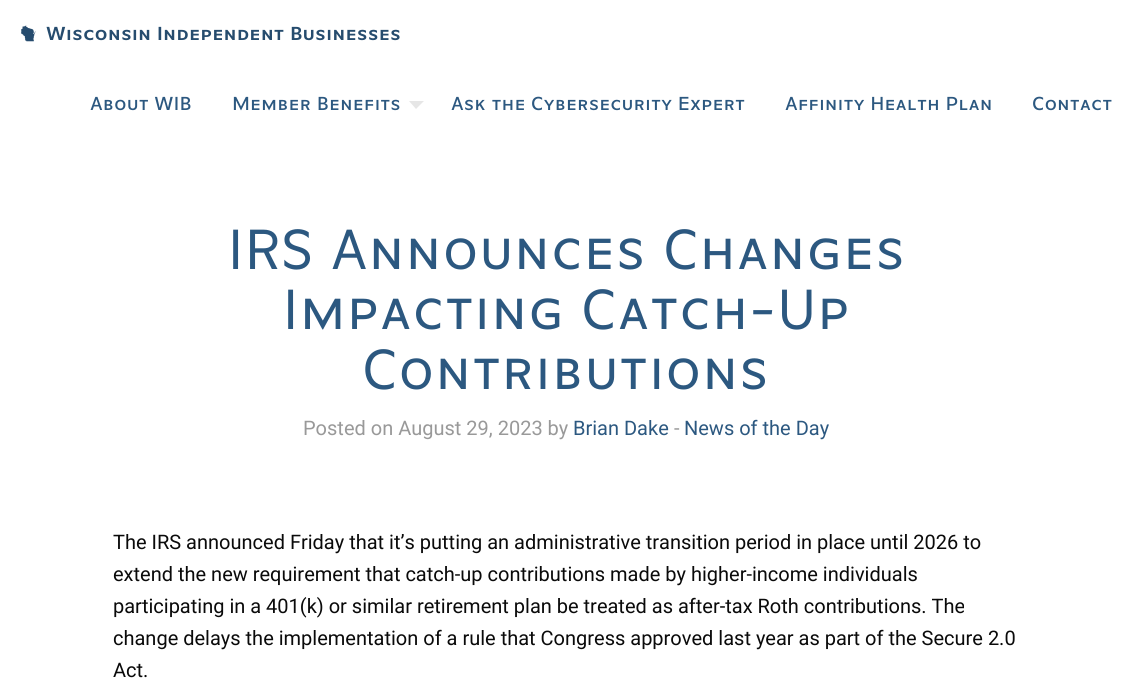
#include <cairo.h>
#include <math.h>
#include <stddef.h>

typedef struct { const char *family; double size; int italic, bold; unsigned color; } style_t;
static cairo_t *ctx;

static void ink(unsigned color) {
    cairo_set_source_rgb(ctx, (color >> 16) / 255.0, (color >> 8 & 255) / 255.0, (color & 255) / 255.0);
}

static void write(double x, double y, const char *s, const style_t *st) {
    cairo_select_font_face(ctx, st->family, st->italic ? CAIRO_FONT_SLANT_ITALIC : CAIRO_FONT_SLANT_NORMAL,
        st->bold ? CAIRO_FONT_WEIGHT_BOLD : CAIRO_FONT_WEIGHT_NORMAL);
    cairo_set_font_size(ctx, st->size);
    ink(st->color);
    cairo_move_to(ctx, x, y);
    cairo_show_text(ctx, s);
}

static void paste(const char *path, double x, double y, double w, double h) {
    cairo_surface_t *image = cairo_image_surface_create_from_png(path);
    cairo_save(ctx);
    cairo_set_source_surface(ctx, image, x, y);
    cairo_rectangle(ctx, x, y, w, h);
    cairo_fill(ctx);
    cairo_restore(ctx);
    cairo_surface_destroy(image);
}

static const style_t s1 = {"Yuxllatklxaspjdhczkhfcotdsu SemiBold", 20, 0, 0, 0x264c6e};
static const style_t s2 = {"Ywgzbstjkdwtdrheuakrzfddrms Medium", 20, 0, 0, 0x2c5880};
static const style_t s3 = {"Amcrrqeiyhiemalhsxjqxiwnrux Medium", 60, 0, 0, 0x2c5880};
static const style_t s4 = {"Roboto", 20, 0, 0, 0x999999};
static const style_t s5 = {"Roboto", 20, 0, 0, 0x2c5880};
static const style_t s6 = {"Roboto", 20, 0, 0, 0x0a0a0a};

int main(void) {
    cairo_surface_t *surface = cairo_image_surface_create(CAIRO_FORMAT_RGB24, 1132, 695);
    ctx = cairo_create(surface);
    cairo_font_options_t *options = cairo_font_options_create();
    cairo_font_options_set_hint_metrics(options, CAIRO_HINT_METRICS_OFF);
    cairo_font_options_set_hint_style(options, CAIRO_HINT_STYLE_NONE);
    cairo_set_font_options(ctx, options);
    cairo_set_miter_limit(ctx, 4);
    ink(0xffffff);
    cairo_paint(ctx);
    paste("pic1.png", 21, 25, 15, 17);
    write(46, 40, "Wisconsin Independent Businesses", &s1);
    write(90, 110, "About WIB", &s2);
    write(232, 110, "Member Benefits", &s2);
    ink(0xe6e6e6);
    cairo_new_path(ctx);
    cairo_move_to(ctx, 409, 101);
    cairo_line_to(ctx, 424, 101);
    cairo_line_to(ctx, 416, 109);
    cairo_close_path(ctx);
    cairo_fill(ctx);
    write(451, 110, "Ask the Cybersecurity Expert", &s2);
    write(785, 110, "Affinity Health Plan", &s2);
    write(1032, 110, "Contact", &s2);
    write(227, 269, "IRS Announces Changes", &s3);
    write(282, 329, "Impacting Catch-Up", &s3);
    write(362, 389, "Contributions", &s3);
    write(303, 435, "Posted on August 29, 2023 by", &s4);
    write(573, 435, "Brian Dake", &s5);
    write(674, 435, "-", &s4);
    write(684, 435, "News of the Day", &s5);
    write(113, 549, "The IRS announced Friday that it’s putting an administrative transition period in place until 2026 to", &s6);
    write(113, 581, "extend the new requirement that catch-up contributions made by higher-income individuals", &s6);
    write(113, 613, "participating in a 401(k) or similar retirement plan be treated as after-tax Roth contributions. The", &s6);
    write(113, 645, "change delays the implementation of a rule that Congress approved last year as part of the Secure 2.0", &s6);
    write(113, 677, "Act.", &s6);
    cairo_surface_write_to_png(surface, "screenshot.png");
    cairo_font_options_destroy(options);
    cairo_destroy(ctx);
    cairo_surface_destroy(surface);
    return 0;
}
